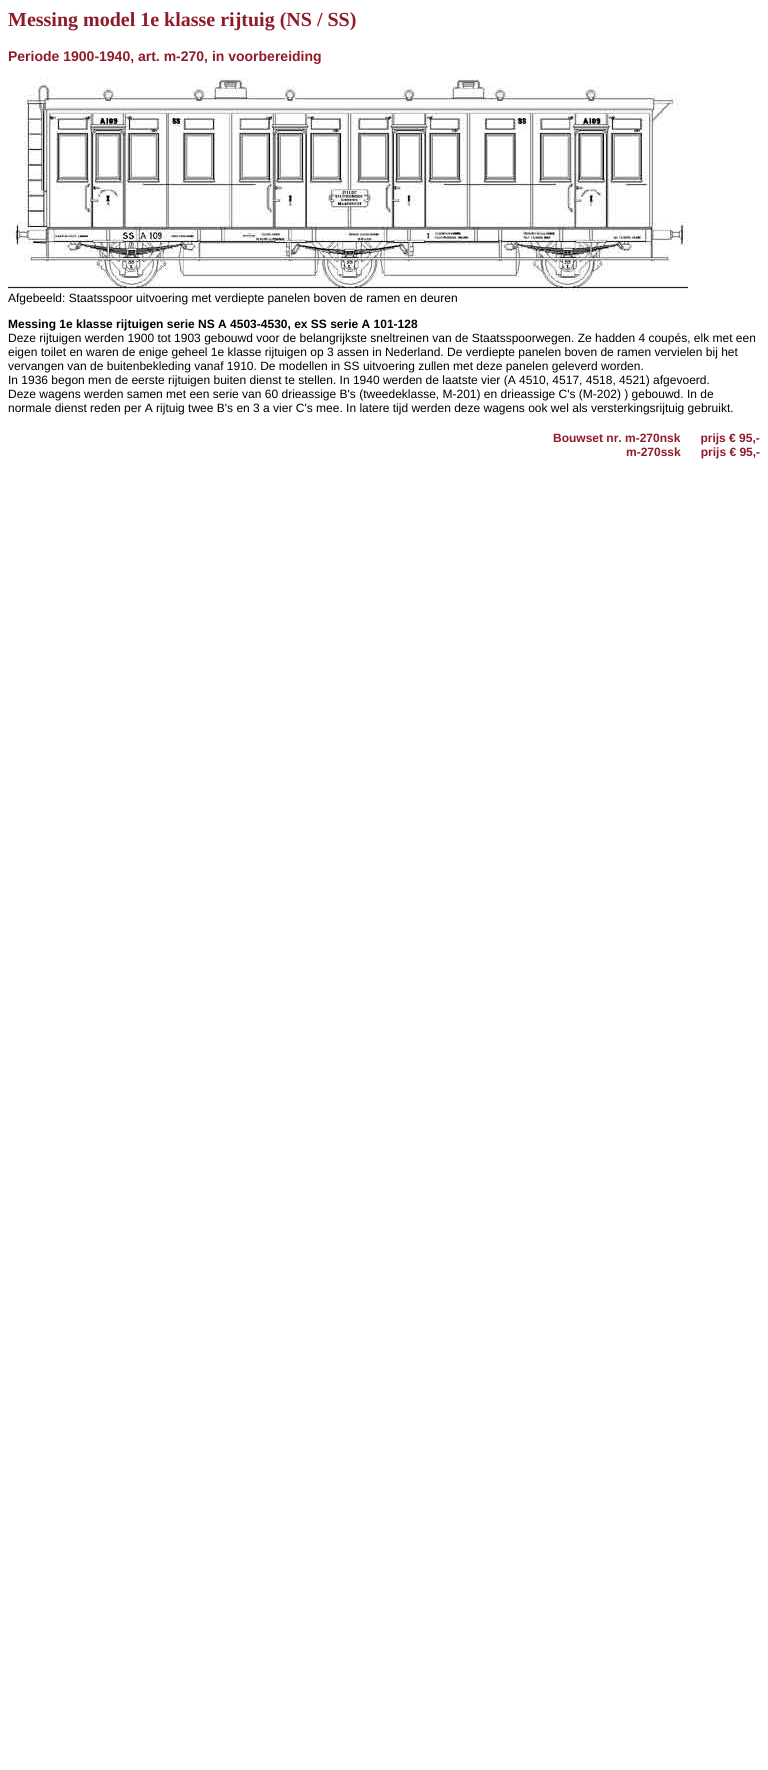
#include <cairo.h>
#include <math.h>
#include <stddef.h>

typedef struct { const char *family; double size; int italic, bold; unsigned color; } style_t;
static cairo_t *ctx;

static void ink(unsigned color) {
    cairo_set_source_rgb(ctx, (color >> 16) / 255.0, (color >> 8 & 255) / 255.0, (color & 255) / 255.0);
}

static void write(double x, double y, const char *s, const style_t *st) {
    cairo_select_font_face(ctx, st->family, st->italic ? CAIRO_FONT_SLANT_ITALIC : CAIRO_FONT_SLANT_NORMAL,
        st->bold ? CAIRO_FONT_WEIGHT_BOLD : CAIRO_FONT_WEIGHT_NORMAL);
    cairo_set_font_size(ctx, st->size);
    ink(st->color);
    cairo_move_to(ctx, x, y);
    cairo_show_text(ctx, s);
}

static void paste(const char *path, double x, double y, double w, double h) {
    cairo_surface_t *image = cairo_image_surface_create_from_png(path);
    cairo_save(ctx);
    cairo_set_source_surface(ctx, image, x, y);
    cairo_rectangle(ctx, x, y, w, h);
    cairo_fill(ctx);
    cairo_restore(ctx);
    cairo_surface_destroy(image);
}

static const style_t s1 = {"Liberation Serif", 20, 0, 1, 0x8f1b2a};
static const style_t s2 = {"Liberation Sans", 14, 0, 1, 0x8f1b2a};
static const style_t s3 = {"Liberation Sans", 12, 0, 0, 0x000000};
static const style_t s4 = {"Liberation Sans", 12, 0, 1, 0x000000};
static const style_t s5 = {"Liberation Sans", 12, 0, 1, 0x8f1b2a};

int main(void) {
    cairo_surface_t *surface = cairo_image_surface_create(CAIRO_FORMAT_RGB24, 768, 1770);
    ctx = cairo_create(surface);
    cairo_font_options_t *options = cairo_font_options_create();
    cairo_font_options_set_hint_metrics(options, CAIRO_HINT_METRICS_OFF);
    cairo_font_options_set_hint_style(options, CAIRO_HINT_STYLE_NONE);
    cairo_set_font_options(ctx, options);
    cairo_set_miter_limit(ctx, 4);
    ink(0xffffff);
    cairo_paint(ctx);
    write(8, 26, "Messing model 1e klasse rijtuig (NS / SS)", &s1);
    write(8, 61, "Periode 1900-1940, art. m-270, in voorbereiding", &s2);
    paste("pic1.png", 8, 78, 680, 213);
    write(8, 302, "Afgebeeld: Staatsspoor uitvoering met verdiepte panelen boven de ramen en deuren", &s3);
    write(8, 328, "Messing 1e klasse rijtuigen serie NS A 4503-4530, ex SS serie A 101-128", &s4);
    write(8, 342, "Deze rijtuigen werden 1900 tot 1903 gebouwd voor de belangrijkste sneltreinen van de Staatsspoorwegen. Ze hadden 4 coupés, elk met een", &s3);
    write(8, 356, "eigen toilet en waren de enige geheel 1e klasse rijtuigen op 3 assen in Nederland. De verdiepte panelen boven de ramen vervielen bij het", &s3);
    write(8, 370, "vervangen van de buitenbekleding vanaf 1910. De modellen in SS uitvoering zullen met deze panelen geleverd worden.", &s3);
    write(8, 384, "In 1936 begon men de eerste rijtuigen buiten dienst te stellen. In 1940 werden de laatste vier (A 4510, 4517, 4518, 4521) afgevoerd.", &s3);
    write(8, 398, "Deze wagens werden samen met een serie van 60 drieassige B's (tweedeklasse, M-201) en drieassige C's (M-202) ) gebouwd. In de", &s3);
    write(8, 412, "normale dienst reden per A rijtuig twee B's en 3 a vier C's mee. In latere tijd werden deze wagens ook wel als versterkingsrijtuig gebruikt.", &s3);
    write(553, 442, "Bouwset nr. m-270nsk      prijs € 95,-", &s5);
    write(626, 456, "m-270ssk      prijs € 95,-", &s5);
    cairo_surface_write_to_png(surface, "screenshot.png");
    cairo_font_options_destroy(options);
    cairo_destroy(ctx);
    cairo_surface_destroy(surface);
    return 0;
}
